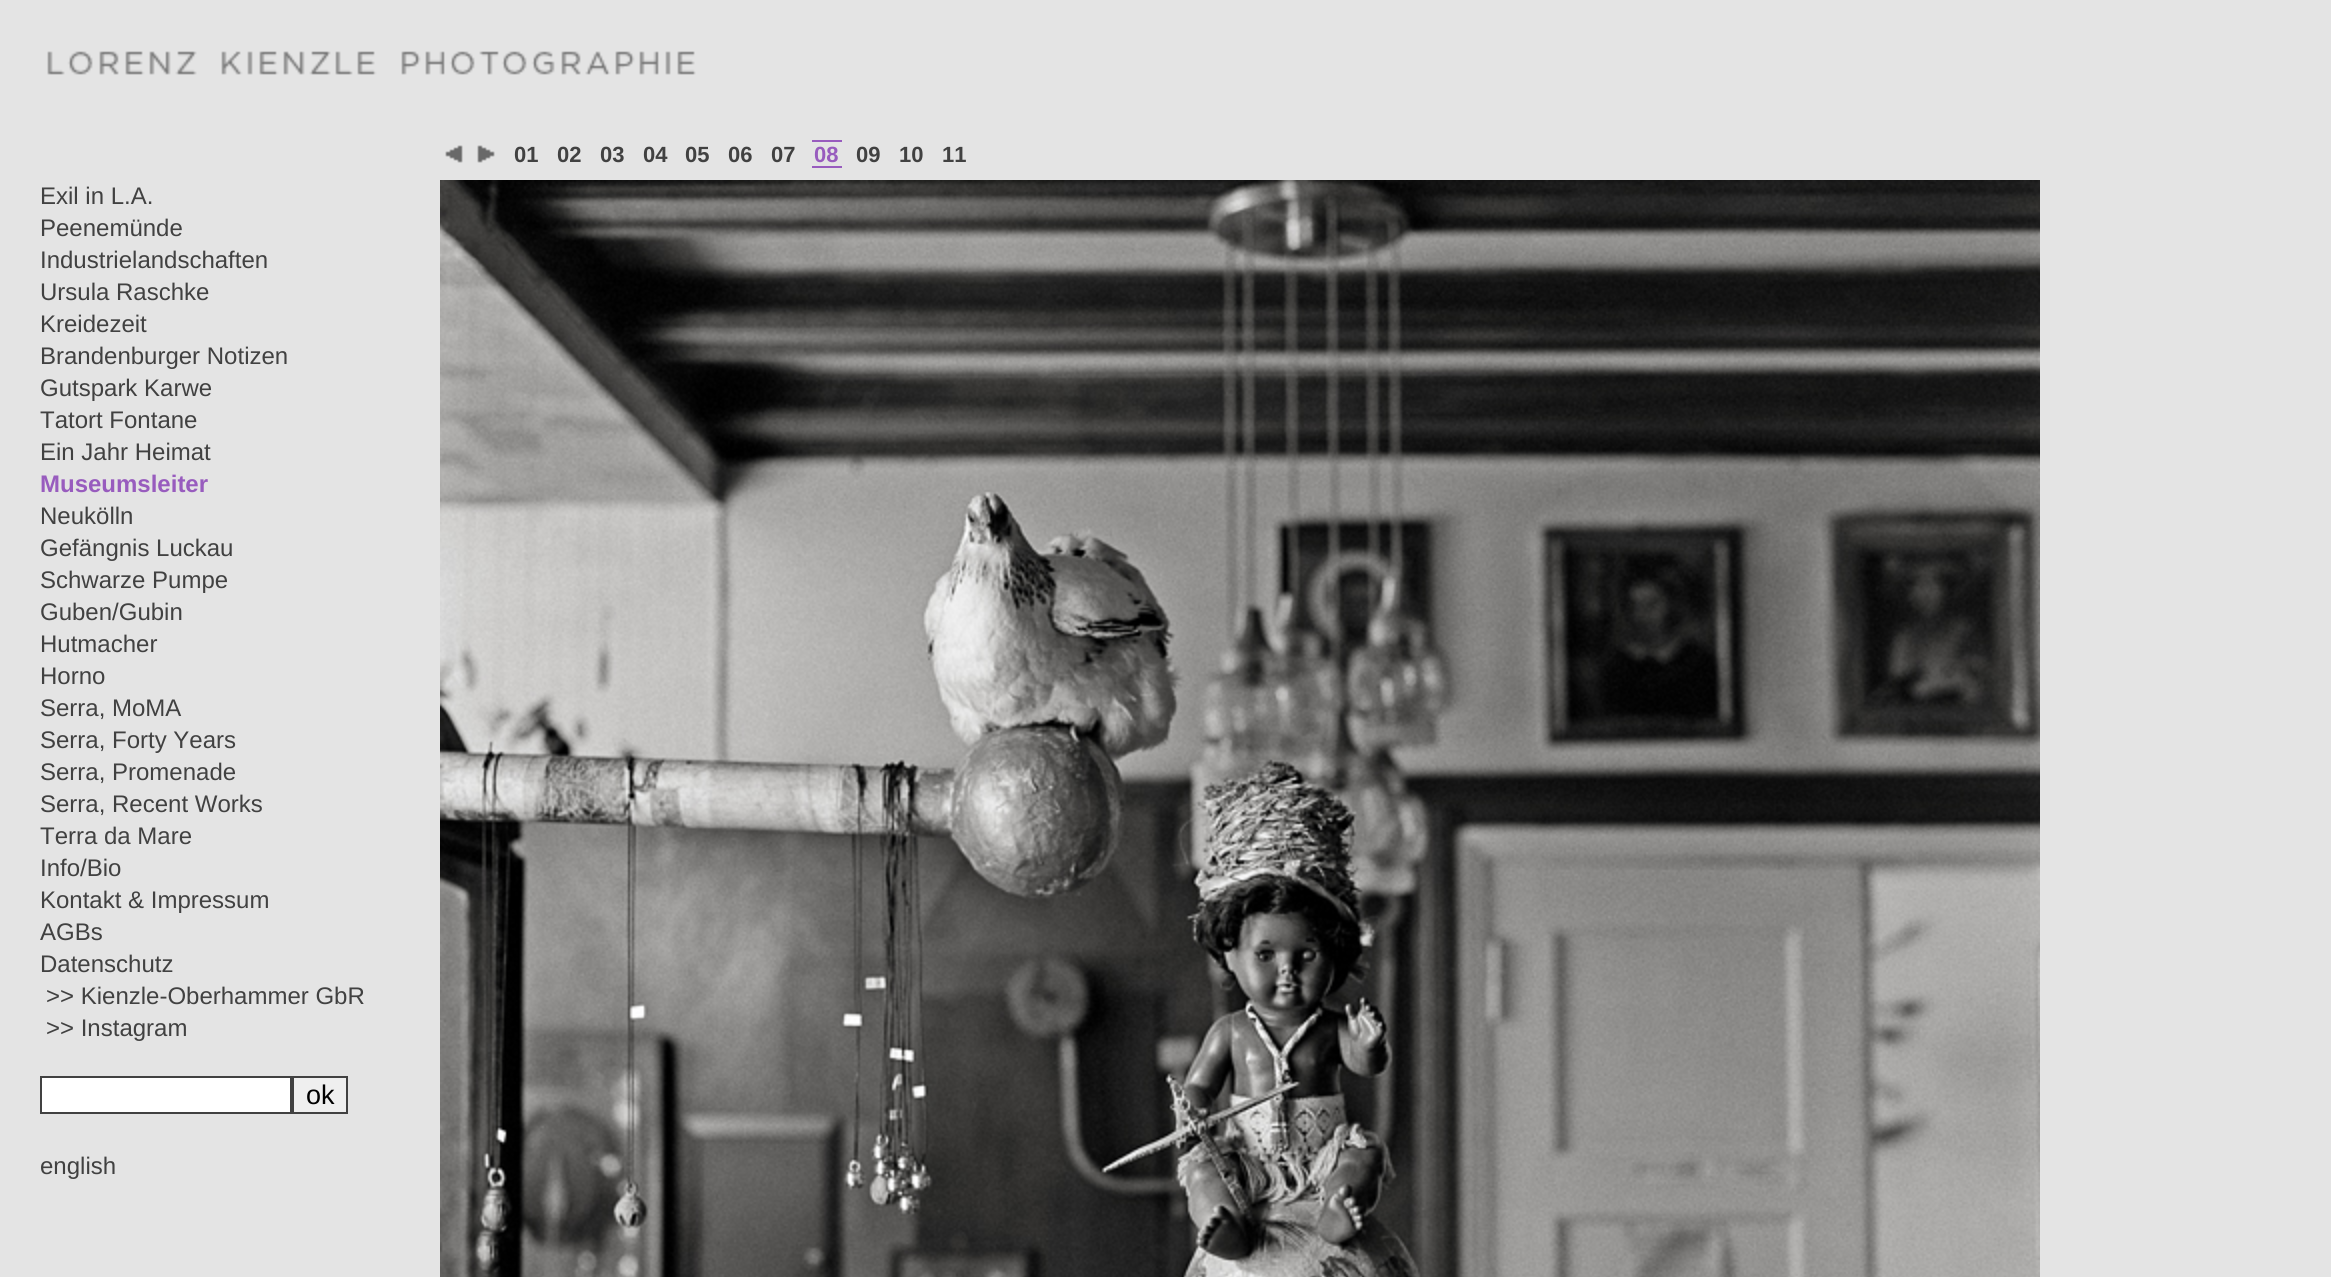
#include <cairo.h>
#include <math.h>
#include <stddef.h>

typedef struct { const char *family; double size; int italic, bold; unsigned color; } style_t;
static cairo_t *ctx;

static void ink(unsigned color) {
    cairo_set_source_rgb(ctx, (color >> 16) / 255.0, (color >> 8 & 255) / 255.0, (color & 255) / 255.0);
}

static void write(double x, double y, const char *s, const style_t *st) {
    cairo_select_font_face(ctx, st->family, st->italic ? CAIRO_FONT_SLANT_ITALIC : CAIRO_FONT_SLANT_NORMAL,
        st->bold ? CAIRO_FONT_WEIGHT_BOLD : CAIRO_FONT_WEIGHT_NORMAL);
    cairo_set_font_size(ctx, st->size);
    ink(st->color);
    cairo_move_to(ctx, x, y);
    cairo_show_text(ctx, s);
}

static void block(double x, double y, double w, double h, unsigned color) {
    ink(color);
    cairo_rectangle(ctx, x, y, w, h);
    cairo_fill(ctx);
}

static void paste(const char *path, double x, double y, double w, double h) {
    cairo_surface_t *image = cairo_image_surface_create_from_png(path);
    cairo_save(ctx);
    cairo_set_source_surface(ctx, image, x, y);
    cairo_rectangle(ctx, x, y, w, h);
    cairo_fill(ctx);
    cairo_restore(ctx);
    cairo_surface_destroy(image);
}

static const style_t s1 = {"Liberation Sans", 22, 0, 1, 0x414141};
static const style_t s2 = {"Liberation Sans", 22, 0, 1, 0x985cbe};
static const style_t s3 = {"Liberation Sans", 24, 0, 0, 0x414141};
static const style_t s4 = {"Liberation Sans", 24, 0, 1, 0x985cbe};
static const style_t s5 = {"Liberation Sans", 27, 0, 0, 0x000000};

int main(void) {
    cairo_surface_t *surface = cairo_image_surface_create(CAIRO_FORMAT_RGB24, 2331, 1277);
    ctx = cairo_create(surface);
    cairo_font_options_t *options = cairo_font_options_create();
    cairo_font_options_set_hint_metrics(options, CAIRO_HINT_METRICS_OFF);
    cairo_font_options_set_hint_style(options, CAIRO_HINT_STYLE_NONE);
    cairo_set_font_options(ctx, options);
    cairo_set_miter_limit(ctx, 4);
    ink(0xe4e4e4);
    cairo_paint(ctx);
    paste("pic1.png", 47, 51, 649, 24);
    paste("pic2.png", 445, 145, 18, 18);
    paste("pic3.png", 477, 145, 18, 18);
    write(514, 162, "01", &s1);
    write(557, 162, "02", &s1);
    write(600, 162, "03", &s1);
    write(643, 162, "04", &s1);
    write(685, 162, "05", &s1);
    write(728, 162, "06", &s1);
    write(771, 162, "07", &s1);
    write(814, 162, "08", &s2);
    block(812, 140, 30, 2, 0x985cbe);
    block(812, 166, 30, 2, 0x985cbe);
    write(856, 162, "09", &s1);
    write(899, 162, "10", &s1);
    write(942, 162, "11", &s1);
    write(40, 204, "Exil in L.A.", &s3);
    write(40, 236, "Peenemünde", &s3);
    write(40, 268, "Industrielandschaften", &s3);
    write(40, 300, "Ursula Raschke", &s3);
    write(40, 332, "Kreidezeit", &s3);
    write(40, 364, "Brandenburger Notizen", &s3);
    write(40, 396, "Gutspark Karwe", &s3);
    write(40, 428, "Tatort Fontane", &s3);
    write(40, 460, "Ein Jahr Heimat", &s3);
    write(40, 492, "Museumsleiter", &s4);
    write(40, 524, "Neukölln", &s3);
    write(40, 556, "Gefängnis Luckau", &s3);
    write(40, 588, "Schwarze Pumpe", &s3);
    write(40, 620, "Guben/Gubin", &s3);
    write(40, 652, "Hutmacher", &s3);
    write(40, 684, "Horno", &s3);
    write(40, 716, "Serra, MoMA", &s3);
    write(40, 748, "Serra, Forty Years", &s3);
    write(40, 780, "Serra, Promenade", &s3);
    write(40, 812, "Serra, Recent Works", &s3);
    write(40, 844, "Terra da Mare", &s3);
    write(40, 876, "Info/Bio", &s3);
    write(40, 908, "Kontakt & Impressum", &s3);
    write(40, 940, "AGBs", &s3);
    write(40, 972, "Datenschutz", &s3);
    write(46, 1004, ">> Kienzle-Oberhammer GbR", &s3);
    write(46, 1036, ">> Instagram", &s3);
    ink(0xffffff);
    cairo_rectangle(ctx, 41, 1077, 250, 36);
    cairo_fill_preserve(ctx);
    ink(0x414141);
    cairo_stroke(ctx);
    ink(0xefefef);
    cairo_rectangle(ctx, 293, 1077, 54, 36);
    cairo_fill_preserve(ctx);
    ink(0x414141);
    cairo_stroke(ctx);
    write(306, 1104, "ok", &s5);
    write(40, 1174, "english", &s3);
    paste("pic4.png", 440, 180, 1600, 1097);
    cairo_surface_write_to_png(surface, "screenshot.png");
    cairo_font_options_destroy(options);
    cairo_destroy(ctx);
    cairo_surface_destroy(surface);
    return 0;
}
